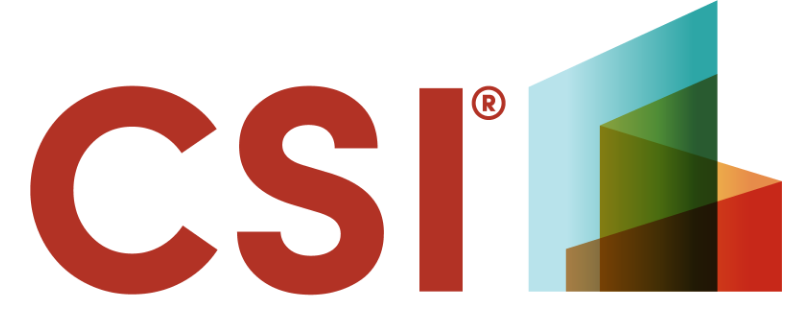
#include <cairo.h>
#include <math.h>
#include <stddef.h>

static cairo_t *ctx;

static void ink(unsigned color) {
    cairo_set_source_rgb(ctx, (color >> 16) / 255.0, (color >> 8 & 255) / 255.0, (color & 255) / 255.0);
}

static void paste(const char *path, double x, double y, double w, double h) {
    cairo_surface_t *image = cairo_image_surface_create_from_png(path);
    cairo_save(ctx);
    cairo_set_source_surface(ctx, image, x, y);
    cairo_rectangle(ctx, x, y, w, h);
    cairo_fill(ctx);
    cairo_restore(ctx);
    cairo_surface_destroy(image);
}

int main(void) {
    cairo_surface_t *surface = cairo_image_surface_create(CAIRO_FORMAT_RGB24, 812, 318);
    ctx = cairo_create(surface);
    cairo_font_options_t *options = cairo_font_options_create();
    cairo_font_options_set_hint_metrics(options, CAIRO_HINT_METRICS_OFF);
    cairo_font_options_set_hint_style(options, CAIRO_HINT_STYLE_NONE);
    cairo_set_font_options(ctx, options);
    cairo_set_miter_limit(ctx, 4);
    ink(0xffffff);
    cairo_paint(ctx);
    paste("pic1.png", 30, 0, 752, 296);
    cairo_surface_write_to_png(surface, "screenshot.png");
    cairo_font_options_destroy(options);
    cairo_destroy(ctx);
    cairo_surface_destroy(surface);
    return 0;
}
